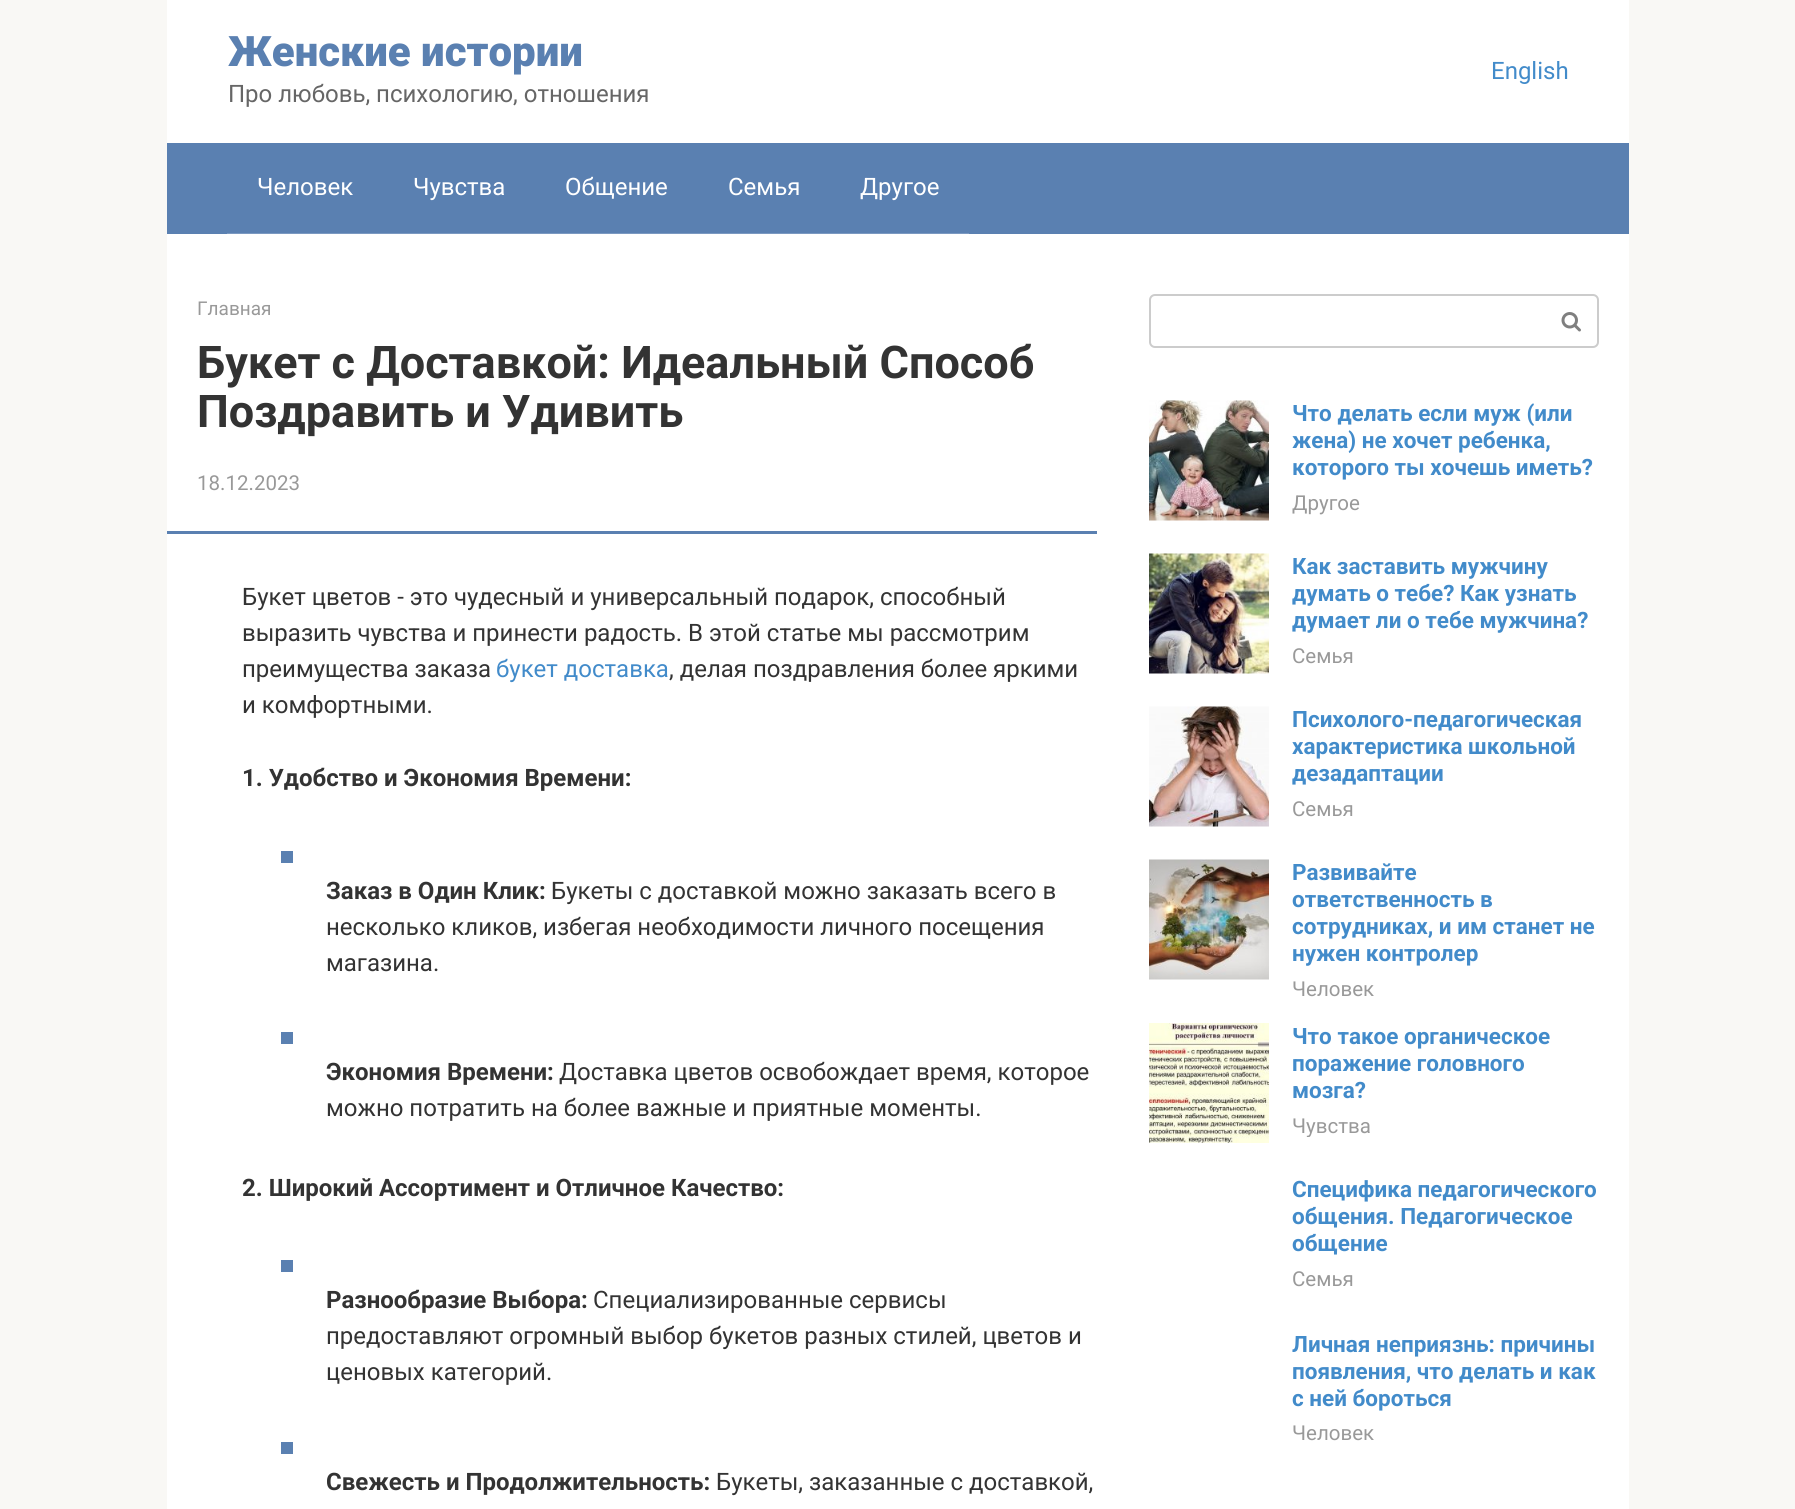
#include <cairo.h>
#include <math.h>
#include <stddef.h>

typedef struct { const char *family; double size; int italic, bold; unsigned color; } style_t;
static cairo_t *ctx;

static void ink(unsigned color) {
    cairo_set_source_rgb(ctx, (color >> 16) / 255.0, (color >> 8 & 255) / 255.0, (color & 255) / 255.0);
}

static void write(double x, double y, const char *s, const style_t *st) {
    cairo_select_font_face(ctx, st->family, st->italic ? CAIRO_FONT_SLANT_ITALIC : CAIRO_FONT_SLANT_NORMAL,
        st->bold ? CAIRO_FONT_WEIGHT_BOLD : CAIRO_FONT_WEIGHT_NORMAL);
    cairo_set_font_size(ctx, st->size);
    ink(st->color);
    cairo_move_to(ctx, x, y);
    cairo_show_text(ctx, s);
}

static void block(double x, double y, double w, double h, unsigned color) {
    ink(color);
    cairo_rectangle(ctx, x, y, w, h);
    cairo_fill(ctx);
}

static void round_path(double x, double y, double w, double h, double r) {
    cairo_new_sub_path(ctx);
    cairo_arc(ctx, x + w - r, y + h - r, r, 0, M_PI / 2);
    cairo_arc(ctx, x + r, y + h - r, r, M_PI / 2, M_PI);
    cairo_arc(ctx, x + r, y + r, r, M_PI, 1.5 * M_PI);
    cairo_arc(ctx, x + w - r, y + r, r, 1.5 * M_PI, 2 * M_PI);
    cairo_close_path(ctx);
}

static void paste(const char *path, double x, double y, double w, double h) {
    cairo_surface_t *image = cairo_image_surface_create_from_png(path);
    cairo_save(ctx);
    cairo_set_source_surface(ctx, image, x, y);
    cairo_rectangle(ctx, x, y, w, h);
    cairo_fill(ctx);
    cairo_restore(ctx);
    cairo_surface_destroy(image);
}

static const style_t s1 = {"Roboto Black", 42, 0, 0, 0x5a80b1};
static const style_t s2 = {"Roboto", 24, 0, 0, 0x666666};
static const style_t s3 = {"Roboto", 24, 0, 0, 0x428bca};
static const style_t s4 = {"Roboto", 24, 0, 0, 0xffffff};
static const style_t s5 = {"Roboto", 19, 0, 0, 0x999999};
static const style_t s6 = {"Roboto", 45, 0, 1, 0x333333};
static const style_t s7 = {"Roboto", 20.5, 0, 0, 0x999999};
static const style_t s8 = {"Roboto", 24, 0, 0, 0x333333};
static const style_t s9 = {"Roboto", 24, 0, 1, 0x333333};
static const style_t s10 = {"Roboto", 22.5, 0, 1, 0x428bca};

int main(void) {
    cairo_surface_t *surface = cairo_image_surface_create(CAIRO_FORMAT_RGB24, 1795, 1509);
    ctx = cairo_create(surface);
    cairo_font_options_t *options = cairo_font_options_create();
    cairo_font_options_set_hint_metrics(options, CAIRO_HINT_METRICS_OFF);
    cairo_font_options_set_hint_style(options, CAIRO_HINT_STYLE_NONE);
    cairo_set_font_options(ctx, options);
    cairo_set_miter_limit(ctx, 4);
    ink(0xf9f8f5);
    cairo_paint(ctx);
    block(167, 0, 1462, 143, 0xffffff);
    write(228, 66, "Женские истории", &s1);
    write(228, 102, "Про любовь, психологию, отношения", &s2);
    write(1491, 79, "English", &s3);
    block(167, 143, 1462, 91, 0x5a80b1);
    block(227, 233, 742, 1, 0x7b99c1);
    write(257, 195, "Человек", &s4);
    write(413, 195, "Чувства", &s4);
    write(565, 195, "Общение", &s4);
    write(728, 195, "Семья", &s4);
    write(860, 195, "Другое", &s4);
    block(167, 234, 1462, 1275, 0xffffff);
    write(197, 315, "Главная", &s5);
    write(197, 378, "Букет с Доставкой: Идеальный Способ", &s6);
    write(197, 427, "Поздравить и Удивить", &s6);
    write(197, 490, "18.12.2023", &s7);
    block(167, 531, 930, 3, 0x5a80b1);
    write(242, 605, "Букет цветов - это чудесный и универсальный подарок, способный", &s8);
    write(242, 641, "выразить чувства и принести радость. В этой статье мы рассмотрим", &s8);
    write(242, 677, "преимущества заказа", &s8);
    write(496, 677, "букет доставка", &s3);
    write(669, 677, ", делая поздравления более яркими", &s8);
    write(242, 713, "и комфортными.", &s8);
    write(242, 786, "1. Удобство и Экономия Времени:", &s9);
    block(281, 851, 12, 12, 0x5a80b1);
    write(326, 899, "Заказ в Один Клик:", &s9);
    write(551, 899, "Букеты с доставкой можно заказать всего в", &s8);
    write(326, 935, "несколько кликов, избегая необходимости личного посещения", &s8);
    write(326, 971, "магазина.", &s8);
    block(281, 1032, 12, 12, 0x5a80b1);
    write(326, 1080, "Экономия Времени:", &s9);
    write(559, 1080, "Доставка цветов освобождает время, которое", &s8);
    write(326, 1116, "можно потратить на более важные и приятные моменты.", &s8);
    write(242, 1196, "2. Широкий Ассортимент и Отличное Качество:", &s9);
    block(281, 1260, 12, 12, 0x5a80b1);
    write(326, 1308, "Разнообразие Выбора:", &s9);
    write(593, 1308, "Специализированные сервисы", &s8);
    write(326, 1344, "предоставляют огромный выбор букетов разных стилей, цветов и", &s8);
    write(326, 1380, "ценовых категорий.", &s8);
    block(281, 1442, 12, 12, 0x5a80b1);
    write(326, 1490, "Свежесть и Продолжительность:", &s9);
    write(716, 1490, "Букеты, заказанные с доставкой,", &s8);
    round_path(1150, 295, 448, 52, 5);
    ink(0xcccccc);
    cairo_stroke(ctx);
    paste("pic1.png", 1561, 312, 20, 20);
    paste("pic2.png", 1149, 400, 120, 121);
    write(1292, 421, "Что делать если муж (или", &s10);
    write(1292, 448, "жена) не хочет ребенка,", &s10);
    write(1292, 475, "которого ты хочешь иметь?", &s10);
    write(1292, 510, "Другое", &s7);
    paste("pic3.png", 1149, 553, 120, 121);
    write(1292, 574, "Как заставить мужчину", &s10);
    cairo_save(ctx);
    cairo_rectangle(ctx, 1292, 554, 307, 114);
    cairo_clip(ctx);
    write(1292, 601, "думать о тебе? Как узнать", &s10);
    write(1292, 628, "думает ли о тебе мужчина?", &s10);
    cairo_restore(ctx);
    write(1292, 663, "Семья", &s7);
    paste("pic4.png", 1149, 706, 120, 121);
    write(1292, 727, "Психолого-педагогическая", &s10);
    write(1292, 754, "характеристика школьной", &s10);
    cairo_save(ctx);
    cairo_rectangle(ctx, 1292, 707, 307, 114);
    cairo_clip(ctx);
    write(1292, 781, "дезадаптации", &s10);
    cairo_restore(ctx);
    write(1292, 816, "Семья", &s7);
    paste("pic5.png", 1149, 859, 120, 121);
    write(1292, 880, "Развивайте", &s10);
    write(1292, 907, "ответственность в", &s10);
    write(1292, 934, "сотрудниках, и им станет не", &s10);
    write(1292, 961, "нужен контролер", &s10);
    write(1292, 996, "Человек", &s7);
    paste("pic6.png", 1149, 1023, 120, 120);
    write(1292, 1044, "Что такое органическое", &s10);
    write(1292, 1071, "поражение головного", &s10);
    write(1292, 1098, "мозга?", &s10);
    cairo_save(ctx);
    cairo_rectangle(ctx, 1292, 1023, 307, 114);
    cairo_clip(ctx);
    write(1292, 1133, "Чувства", &s7);
    cairo_restore(ctx);
    write(1292, 1197, "Специфика педагогического", &s10);
    write(1292, 1224, "общения. Педагогическое", &s10);
    write(1292, 1251, "общение", &s10);
    write(1292, 1286, "Семья", &s7);
    write(1292, 1352, "Личная неприязнь: причины", &s10);
    write(1292, 1379, "появления, что делать и как", &s10);
    write(1292, 1406, "с ней бороться", &s10);
    write(1292, 1440, "Человек", &s7);
    cairo_surface_write_to_png(surface, "screenshot.png");
    cairo_font_options_destroy(options);
    cairo_destroy(ctx);
    cairo_surface_destroy(surface);
    return 0;
}
